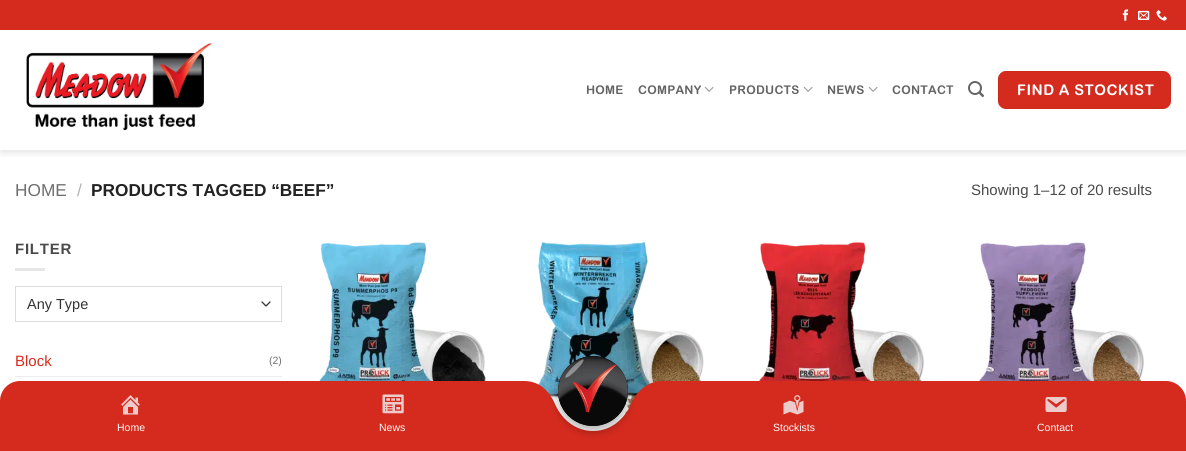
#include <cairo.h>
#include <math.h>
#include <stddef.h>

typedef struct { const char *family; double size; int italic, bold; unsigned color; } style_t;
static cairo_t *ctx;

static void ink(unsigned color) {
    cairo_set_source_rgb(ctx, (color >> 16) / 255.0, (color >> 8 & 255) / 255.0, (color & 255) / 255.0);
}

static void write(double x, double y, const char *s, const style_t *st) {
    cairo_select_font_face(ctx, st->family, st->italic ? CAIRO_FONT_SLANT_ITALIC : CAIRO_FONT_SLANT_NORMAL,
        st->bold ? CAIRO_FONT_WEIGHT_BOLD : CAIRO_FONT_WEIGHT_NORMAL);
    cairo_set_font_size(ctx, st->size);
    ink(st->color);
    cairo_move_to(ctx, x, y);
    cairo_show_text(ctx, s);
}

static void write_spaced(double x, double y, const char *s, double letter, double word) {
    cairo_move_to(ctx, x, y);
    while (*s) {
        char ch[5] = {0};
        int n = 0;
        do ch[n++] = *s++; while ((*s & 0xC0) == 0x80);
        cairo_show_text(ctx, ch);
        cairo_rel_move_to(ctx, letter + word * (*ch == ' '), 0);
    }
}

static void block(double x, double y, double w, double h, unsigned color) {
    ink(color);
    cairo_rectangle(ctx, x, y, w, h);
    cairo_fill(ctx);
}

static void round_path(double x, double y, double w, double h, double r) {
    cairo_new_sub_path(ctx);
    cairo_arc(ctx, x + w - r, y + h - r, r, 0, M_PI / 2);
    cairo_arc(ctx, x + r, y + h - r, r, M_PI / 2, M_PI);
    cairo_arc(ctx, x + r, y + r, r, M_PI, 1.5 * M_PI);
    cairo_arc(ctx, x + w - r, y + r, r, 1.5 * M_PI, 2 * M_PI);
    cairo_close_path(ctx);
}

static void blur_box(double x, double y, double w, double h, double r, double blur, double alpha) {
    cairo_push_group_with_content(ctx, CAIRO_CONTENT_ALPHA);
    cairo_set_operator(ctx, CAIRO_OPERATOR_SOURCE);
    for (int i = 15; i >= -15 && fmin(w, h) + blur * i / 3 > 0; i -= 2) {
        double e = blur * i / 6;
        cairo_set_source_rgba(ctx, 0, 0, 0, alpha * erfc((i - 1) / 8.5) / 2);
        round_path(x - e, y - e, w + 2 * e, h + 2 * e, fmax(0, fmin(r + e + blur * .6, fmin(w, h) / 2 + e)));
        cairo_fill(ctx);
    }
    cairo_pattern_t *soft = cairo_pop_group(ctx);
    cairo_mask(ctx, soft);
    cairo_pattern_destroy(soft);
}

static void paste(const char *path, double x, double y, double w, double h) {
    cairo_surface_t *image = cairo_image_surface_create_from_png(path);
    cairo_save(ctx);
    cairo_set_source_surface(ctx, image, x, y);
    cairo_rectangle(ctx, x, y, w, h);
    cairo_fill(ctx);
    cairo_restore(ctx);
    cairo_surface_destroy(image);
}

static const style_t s1 = {"Liberation Sans", 17.25, 0, 0, 0x6e6e6e};
static const style_t s2 = {"Liberation Sans", 17.25, 0, 0, 0xb2b2b2};
static const style_t s3 = {"Liberation Sans", 17.25, 0, 1, 0x222222};
static const style_t s4 = {"Liberation Sans", 15, 0, 0, 0x4a4a4a};
static const style_t s5 = {"Liberation Sans", 14.5, 0, 0, 0x333333};
static const style_t s6 = {"Liberation Sans", 15, 0, 0, 0xd52b1e};
static const style_t s7 = {"Liberation Sans", 10.5, 0, 0, 0x6e6e6e};
static const style_t s8 = {"Liberation Sans", 10.5, 0, 0, 0xffffff};

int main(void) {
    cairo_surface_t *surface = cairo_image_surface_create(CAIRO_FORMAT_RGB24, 1186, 451);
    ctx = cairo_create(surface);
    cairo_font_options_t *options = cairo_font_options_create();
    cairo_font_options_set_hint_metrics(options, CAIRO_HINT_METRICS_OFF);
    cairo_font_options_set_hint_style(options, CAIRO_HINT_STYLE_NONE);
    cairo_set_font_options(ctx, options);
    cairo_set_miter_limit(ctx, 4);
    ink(0xffffff);
    cairo_paint(ctx);
    cairo_save(ctx);
    cairo_rectangle(ctx, 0, 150, 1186, 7);
    cairo_clip(ctx);
    ink(0x000000);
    blur_box(1, 1, 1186, 150, 0, 5, 0.15);
    cairo_restore(ctx);
    block(0, 0, 1186, 30, 0xd52b1e);
    paste("pic1.png", 1122, 9, 7, 12);
    paste("pic2.png", 1138, 10, 12, 10);
    paste("pic3.png", 1156, 10, 11, 11);
    paste("pic4.png", 26, 43, 186, 88);
    cairo_select_font_face(ctx, "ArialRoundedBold", CAIRO_FONT_SLANT_NORMAL, CAIRO_FONT_WEIGHT_BOLD);
    cairo_set_font_size(ctx, 12);
    ink(0x656565);
    write_spaced(586, 94, "HOME", 0.25, 0);
    write_spaced(638, 94, "COMPANY", 0.25, 0);
    paste("pic5.png", 704, 86, 10, 6);
    write_spaced(729, 94, "PRODUCTS", 0.25, 0);
    paste("pic5.png", 803, 86, 10, 6);
    write_spaced(827, 94, "NEWS", 0.25, 0);
    paste("pic5.png", 868, 86, 10, 6);
    write_spaced(892, 94, "CONTACT", 0.25, 0);
    paste("pic6.png", 968, 81, 16, 16);
    ink(0xd52b1e);
    round_path(998, 71, 173, 38, 8);
    cairo_fill(ctx);
    cairo_rectangle(ctx, 998.5, 71.5, 172, 37);
    cairo_set_source_rgba(ctx, 0, 0, 0, 0.05);
    cairo_set_line_width(ctx, 1);
    cairo_stroke(ctx);
    cairo_set_font_size(ctx, 14.75);
    ink(0xffffff);
    write_spaced(1017, 95, "FIND A STOCKIST", 0.5, 0);
    write(15, 196, "HOME", &s1);
    write(77, 196, "/", &s2);
    write(91, 196, "PRODUCTS TAGGED “BEEF”", &s3);
    write(971, 195, "Showing 1–12 of 20 results", &s4);
    cairo_select_font_face(ctx, "Liberation Sans", CAIRO_FONT_SLANT_NORMAL, CAIRO_FONT_WEIGHT_BOLD);
    write_spaced(15, 254, "FILTER", 0.75, 0);
    block(15, 268, 30, 3, 0xe6e6e6);
    cairo_new_path(ctx);
    cairo_move_to(ctx, 262, 302);
    cairo_line_to(ctx, 266, 306);
    cairo_line_to(ctx, 270, 302);
    ink(0x333333);
    cairo_set_line_width(ctx, 1.3);
    cairo_set_line_cap(ctx, CAIRO_LINE_CAP_ROUND);
    cairo_set_line_join(ctx, CAIRO_LINE_JOIN_ROUND);
    cairo_stroke(ctx);
    cairo_rectangle(ctx, 15.5, 286.5, 266, 35);
    ink(0xdddddd);
    cairo_set_line_width(ctx, 1);
    cairo_set_line_cap(ctx, CAIRO_LINE_CAP_BUTT);
    cairo_set_line_join(ctx, CAIRO_LINE_JOIN_MITER);
    cairo_stroke(ctx);
    write(27, 309, "Any Type", &s5);
    write(15, 366, "Block", &s6);
    write(269, 364, "(2)", &s7);
    block(15, 376, 267, 1, 0xececec);
    paste("pic7.png", 319, 242, 168, 139);
    paste("pic8.png", 537, 242, 167, 174);
    paste("pic9.png", 759, 242, 165, 139);
    paste("pic10.png", 979, 242, 165, 139);
    ink(0xd52b1e);
    cairo_new_path(ctx);
    cairo_move_to(ctx, 20, 381);
    cairo_line_to(ctx, 524, 381);
    cairo_line_to(ctx, 524, 451);
    cairo_line_to(ctx, 0, 451);
    cairo_line_to(ctx, 0, 401);
    cairo_curve_to(ctx, 0, 390, 9, 381, 20, 381);
    cairo_close_path(ctx);
    cairo_fill(ctx);
    cairo_new_path(ctx);
    cairo_move_to(ctx, 662, 381);
    cairo_line_to(ctx, 1166, 381);
    cairo_curve_to(ctx, 1177, 381, 1186, 390, 1186, 401);
    cairo_line_to(ctx, 1186, 451);
    cairo_line_to(ctx, 662, 451);
    cairo_close_path(ctx);
    cairo_fill(ctx);
    cairo_new_path(ctx);
    cairo_move_to(ctx, 662, 381);
    cairo_curve_to(ctx, 649, 381, 637, 390, 631, 404);
    cairo_curve_to(ctx, 624, 420, 610, 431, 593, 431);
    cairo_curve_to(ctx, 576, 431, 562, 420, 555, 404);
    cairo_curve_to(ctx, 548, 388, 537, 381, 524, 381);
    cairo_line_to(ctx, 523, 381);
    cairo_line_to(ctx, 523, 451);
    cairo_line_to(ctx, 663, 451);
    cairo_line_to(ctx, 663, 381);
    cairo_close_path(ctx);
    cairo_fill(ctx);
    ink(0x000000);
    blur_box(558, 361, 70, 70, 35, 5, 0.3);
    ink(0x000000);
    cairo_arc(ctx, 593, 391, 35, 0, 2 * M_PI);
    cairo_fill(ctx);
    paste("pic11.png", 558, 356, 70, 70);
    cairo_set_source_rgba(ctx, 1, 1, 1, 0.4);
    cairo_new_path(ctx);
    cairo_move_to(ctx, 583.5, 359.5);
    cairo_curve_to(ctx, 585.5, 362, 568, 379.5, 565.5, 377.5);
    cairo_curve_to(ctx, 563.5, 375, 581, 357.5, 583.5, 359.5);
    cairo_close_path(ctx);
    cairo_fill(ctx);
    paste("pic12.png", 121, 395, 19, 20);
    write(117, 431, "Home", &s8);
    paste("pic13.png", 382, 394, 22, 20);
    write(379, 431, "News", &s8);
    paste("pic14.png", 783, 395, 21, 20);
    write(773, 431, "Stockists", &s8);
    paste("pic15.png", 1045, 397, 22, 15);
    write(1037, 431, "Contact", &s8);
    cairo_surface_write_to_png(surface, "screenshot.png");
    cairo_font_options_destroy(options);
    cairo_destroy(ctx);
    cairo_surface_destroy(surface);
    return 0;
}
